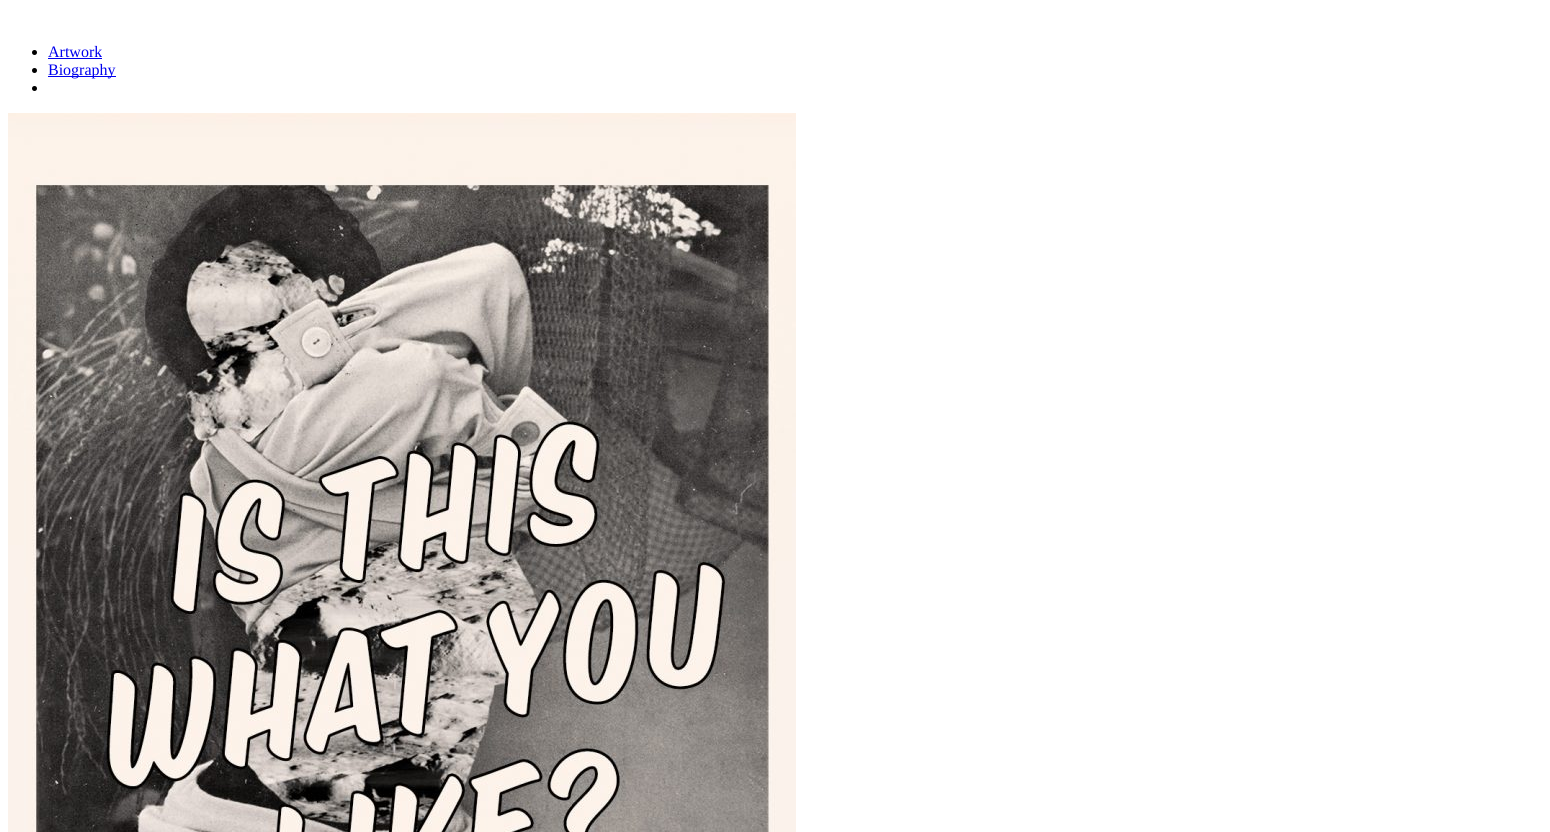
#include <cairo.h>
#include <math.h>
#include <stddef.h>

typedef struct { const char *family; double size; int italic, bold; unsigned color; } style_t;
static cairo_t *ctx;

static void ink(unsigned color) {
    cairo_set_source_rgb(ctx, (color >> 16) / 255.0, (color >> 8 & 255) / 255.0, (color & 255) / 255.0);
}

static void write(double x, double y, const char *s, const style_t *st) {
    cairo_select_font_face(ctx, st->family, st->italic ? CAIRO_FONT_SLANT_ITALIC : CAIRO_FONT_SLANT_NORMAL,
        st->bold ? CAIRO_FONT_WEIGHT_BOLD : CAIRO_FONT_WEIGHT_NORMAL);
    cairo_set_font_size(ctx, st->size);
    ink(st->color);
    cairo_move_to(ctx, x, y);
    cairo_show_text(ctx, s);
}

static void block(double x, double y, double w, double h, unsigned color) {
    ink(color);
    cairo_rectangle(ctx, x, y, w, h);
    cairo_fill(ctx);
}

static void paste(const char *path, double x, double y, double w, double h) {
    cairo_surface_t *image = cairo_image_surface_create_from_png(path);
    cairo_save(ctx);
    cairo_set_source_surface(ctx, image, x, y);
    cairo_rectangle(ctx, x, y, w, h);
    cairo_fill(ctx);
    cairo_restore(ctx);
    cairo_surface_destroy(image);
}

static const style_t s1 = {"Liberation Serif", 16, 0, 0, 0x0000ee};

int main(void) {
    cairo_surface_t *surface = cairo_image_surface_create(CAIRO_FORMAT_RGB24, 1550, 832);
    ctx = cairo_create(surface);
    cairo_font_options_t *options = cairo_font_options_create();
    cairo_font_options_set_hint_metrics(options, CAIRO_HINT_METRICS_OFF);
    cairo_font_options_set_hint_style(options, CAIRO_HINT_STYLE_NONE);
    cairo_set_font_options(ctx, options);
    cairo_set_miter_limit(ctx, 4);
    ink(0xffffff);
    cairo_paint(ctx);
    ink(0x000000);
    cairo_arc(ctx, 34.5, 52.5, 2.5, 0, 2 * M_PI);
    cairo_fill(ctx);
    write(48, 57, "Artwork", &s1);
    block(48, 58, 54, 1, 0x0000ee);
    ink(0x000000);
    cairo_new_path(ctx);
    cairo_arc(ctx, 34.5, 70.5, 2.5, 0, 2 * M_PI);
    cairo_fill(ctx);
    block(48, 76, 68, 1, 0x0000ee);
    write(48, 75, "Biography", &s1);
    ink(0x000000);
    cairo_new_path(ctx);
    cairo_arc(ctx, 34.5, 88.5, 2.5, 0, 2 * M_PI);
    cairo_fill(ctx);
    paste("pic1.png", 8, 113, 788, 719);
    cairo_surface_write_to_png(surface, "screenshot.png");
    cairo_font_options_destroy(options);
    cairo_destroy(ctx);
    cairo_surface_destroy(surface);
    return 0;
}
